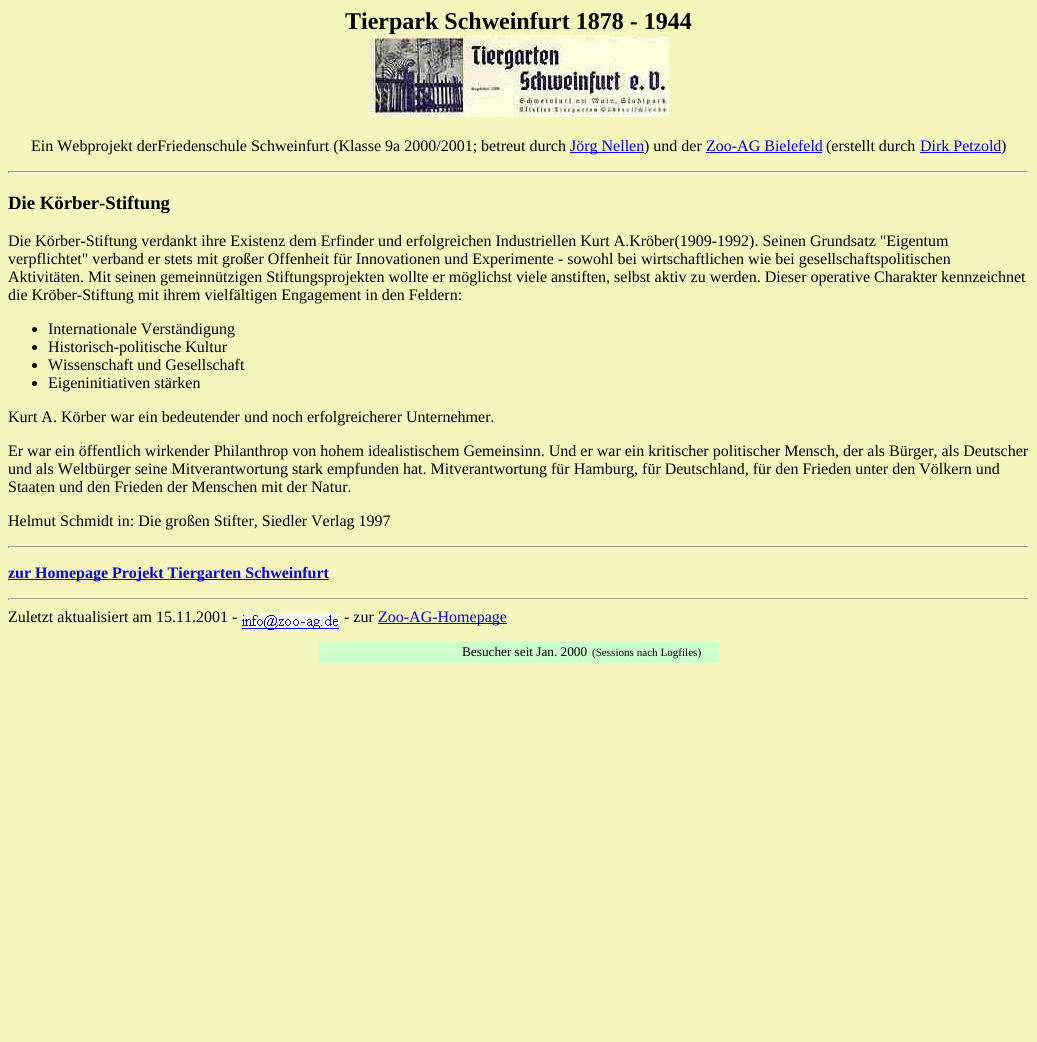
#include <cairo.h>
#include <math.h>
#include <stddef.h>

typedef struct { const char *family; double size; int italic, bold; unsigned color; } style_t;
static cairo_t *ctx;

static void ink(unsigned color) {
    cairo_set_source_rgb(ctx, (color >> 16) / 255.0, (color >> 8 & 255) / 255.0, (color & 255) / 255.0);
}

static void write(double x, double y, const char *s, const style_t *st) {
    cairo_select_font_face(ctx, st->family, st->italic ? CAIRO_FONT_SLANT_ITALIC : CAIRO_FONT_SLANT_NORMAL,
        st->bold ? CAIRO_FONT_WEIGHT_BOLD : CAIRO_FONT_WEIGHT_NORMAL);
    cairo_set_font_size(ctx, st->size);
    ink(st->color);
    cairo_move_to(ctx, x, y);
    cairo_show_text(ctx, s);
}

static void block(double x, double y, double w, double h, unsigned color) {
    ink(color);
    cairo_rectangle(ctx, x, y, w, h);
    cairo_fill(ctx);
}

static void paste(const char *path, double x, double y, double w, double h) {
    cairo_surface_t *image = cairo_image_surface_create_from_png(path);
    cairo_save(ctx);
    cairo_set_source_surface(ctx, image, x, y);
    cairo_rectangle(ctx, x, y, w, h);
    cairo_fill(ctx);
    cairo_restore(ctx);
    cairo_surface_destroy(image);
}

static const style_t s1 = {"Liberation Serif", 24, 0, 1, 0x000000};
static const style_t s2 = {"Liberation Serif", 16, 0, 0, 0x000000};
static const style_t s3 = {"Liberation Serif", 16, 0, 0, 0x0000ee};
static const style_t s4 = {"Liberation Serif", 18.75, 0, 1, 0x000000};
static const style_t s5 = {"Liberation Serif", 16, 0, 1, 0x0000ee};
static const style_t s6 = {"Liberation Serif", 13.25, 0, 0, 0x000000};
static const style_t s7 = {"Liberation Serif", 11.1, 0, 0, 0x000000};

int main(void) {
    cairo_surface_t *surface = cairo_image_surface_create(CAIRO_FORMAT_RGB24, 1037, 1042);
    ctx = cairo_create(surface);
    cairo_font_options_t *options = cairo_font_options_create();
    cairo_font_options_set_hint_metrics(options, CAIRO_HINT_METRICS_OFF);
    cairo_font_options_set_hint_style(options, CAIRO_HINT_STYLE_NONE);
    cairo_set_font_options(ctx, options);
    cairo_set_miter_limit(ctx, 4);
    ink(0xf5f5bc);
    cairo_paint(ctx);
    write(345, 29, "Tierpark Schweinfurt 1878 - 1944", &s1);
    paste("pic1.png", 369, 35, 300, 82);
    write(31, 151, "Ein Webprojekt derFriedenschule Schweinfurt (Klasse 9a 2000/2001; betreut durch", &s2);
    block(570, 152, 74, 1, 0x0000ee);
    write(570, 151, "Jörg Nellen", &s3);
    write(644, 151, ") und der", &s2);
    write(706, 151, "Zoo-AG Bielefeld", &s3);
    block(706, 152, 116, 1, 0x0000ee);
    write(826, 151, "(erstellt durch", &s2);
    write(920, 151, "Dirk Petzold", &s3);
    block(920, 152, 81, 1, 0x0000ee);
    write(1001, 151, ")", &s2);
    block(8, 171, 1021, 1, 0x9f9f9f);
    block(1028, 171, 1, 2, 0xeeeeee);
    block(8, 172, 1021, 1, 0xeeeeee);
    block(8, 171, 1, 2, 0x9f9f9f);
    write(8, 209, "Die Körber-Stiftung", &s4);
    write(8, 246, "Die Körber-Stiftung verdankt ihre Existenz dem Erfinder und erfolgreichen Industriellen Kurt A.Kröber(1909-1992). Seinen Grundsatz \"Eigentum", &s2);
    write(8, 264, "verpflichtet\" verband er stets mit großer Offenheit für Innovationen und Experimente - sowohl bei wirtschaftlichen wie bei gesellschaftspolitischen", &s2);
    write(8, 282, "Aktivitäten. Mit seinen gemeinnützigen Stiftungsprojekten wollte er möglichst viele anstiften, selbst aktiv zu werden. Dieser operative Charakter kennzeichnet", &s2);
    write(8, 300, "die Kröber-Stiftung mit ihrem vielfältigen Engagement in den Feldern:", &s2);
    cairo_new_path(ctx);
    cairo_arc(ctx, 34.5, 329.5, 2.5, 0, 2 * M_PI);
    cairo_fill(ctx);
    write(48, 334, "Internationale Verständigung", &s2);
    cairo_new_path(ctx);
    cairo_arc(ctx, 34.5, 347.5, 2.5, 0, 2 * M_PI);
    cairo_fill(ctx);
    write(48, 352, "Historisch-politische Kultur", &s2);
    cairo_new_path(ctx);
    cairo_arc(ctx, 34.5, 365.5, 2.5, 0, 2 * M_PI);
    cairo_fill(ctx);
    write(48, 370, "Wissenschaft und Gesellschaft", &s2);
    cairo_new_path(ctx);
    cairo_arc(ctx, 34.5, 383.5, 2.5, 0, 2 * M_PI);
    cairo_fill(ctx);
    write(48, 388, "Eigeninitiativen stärken", &s2);
    write(8, 422, "Kurt A. Körber war ein bedeutender und noch erfolgreicherer Unternehmer.", &s2);
    write(8, 456, "Er war ein öffentlich wirkender Philanthrop von hohem idealistischem Gemeinsinn. Und er war ein kritischer politischer Mensch, der als Bürger, als Deutscher", &s2);
    write(8, 474, "und als Weltbürger seine Mitverantwortung stark empfunden hat. Mitverantwortung für Hamburg, für Deutschland, für den Frieden unter den Völkern und", &s2);
    write(8, 492, "Staaten und den Frieden der Menschen mit der Natur.", &s2);
    write(8, 526, "Helmut Schmidt in: Die großen Stifter, Siedler Verlag 1997", &s2);
    block(8, 546, 1021, 1, 0x9f9f9f);
    block(1028, 546, 1, 2, 0xeeeeee);
    block(8, 547, 1021, 1, 0xeeeeee);
    block(8, 546, 1, 2, 0x9f9f9f);
    block(8, 579, 321, 1, 0x0000ee);
    write(8, 578, "zur Homepage Projekt Tiergarten Schweinfurt", &s5);
    block(8, 598, 1021, 1, 0x9f9f9f);
    block(1028, 598, 1, 2, 0xeeeeee);
    block(8, 599, 1021, 1, 0xeeeeee);
    block(8, 598, 1, 2, 0x9f9f9f);
    write(8, 622, "Zuletzt aktualisiert am 15.11.2001 -", &s2);
    paste("pic2.png", 241, 613, 99, 19);
    write(344, 622, "- zur", &s2);
    block(378, 623, 129, 1, 0x0000ee);
    write(378, 622, "Zoo-AG-Homepage", &s3);
    block(319, 641, 400, 22, 0xccffcc);
    write(462, 656, "Besucher seit Jan. 2000", &s6);
    write(592, 656, "(Sessions nach Logfiles)", &s7);
    cairo_surface_write_to_png(surface, "screenshot.png");
    cairo_font_options_destroy(options);
    cairo_destroy(ctx);
    cairo_surface_destroy(surface);
    return 0;
}
